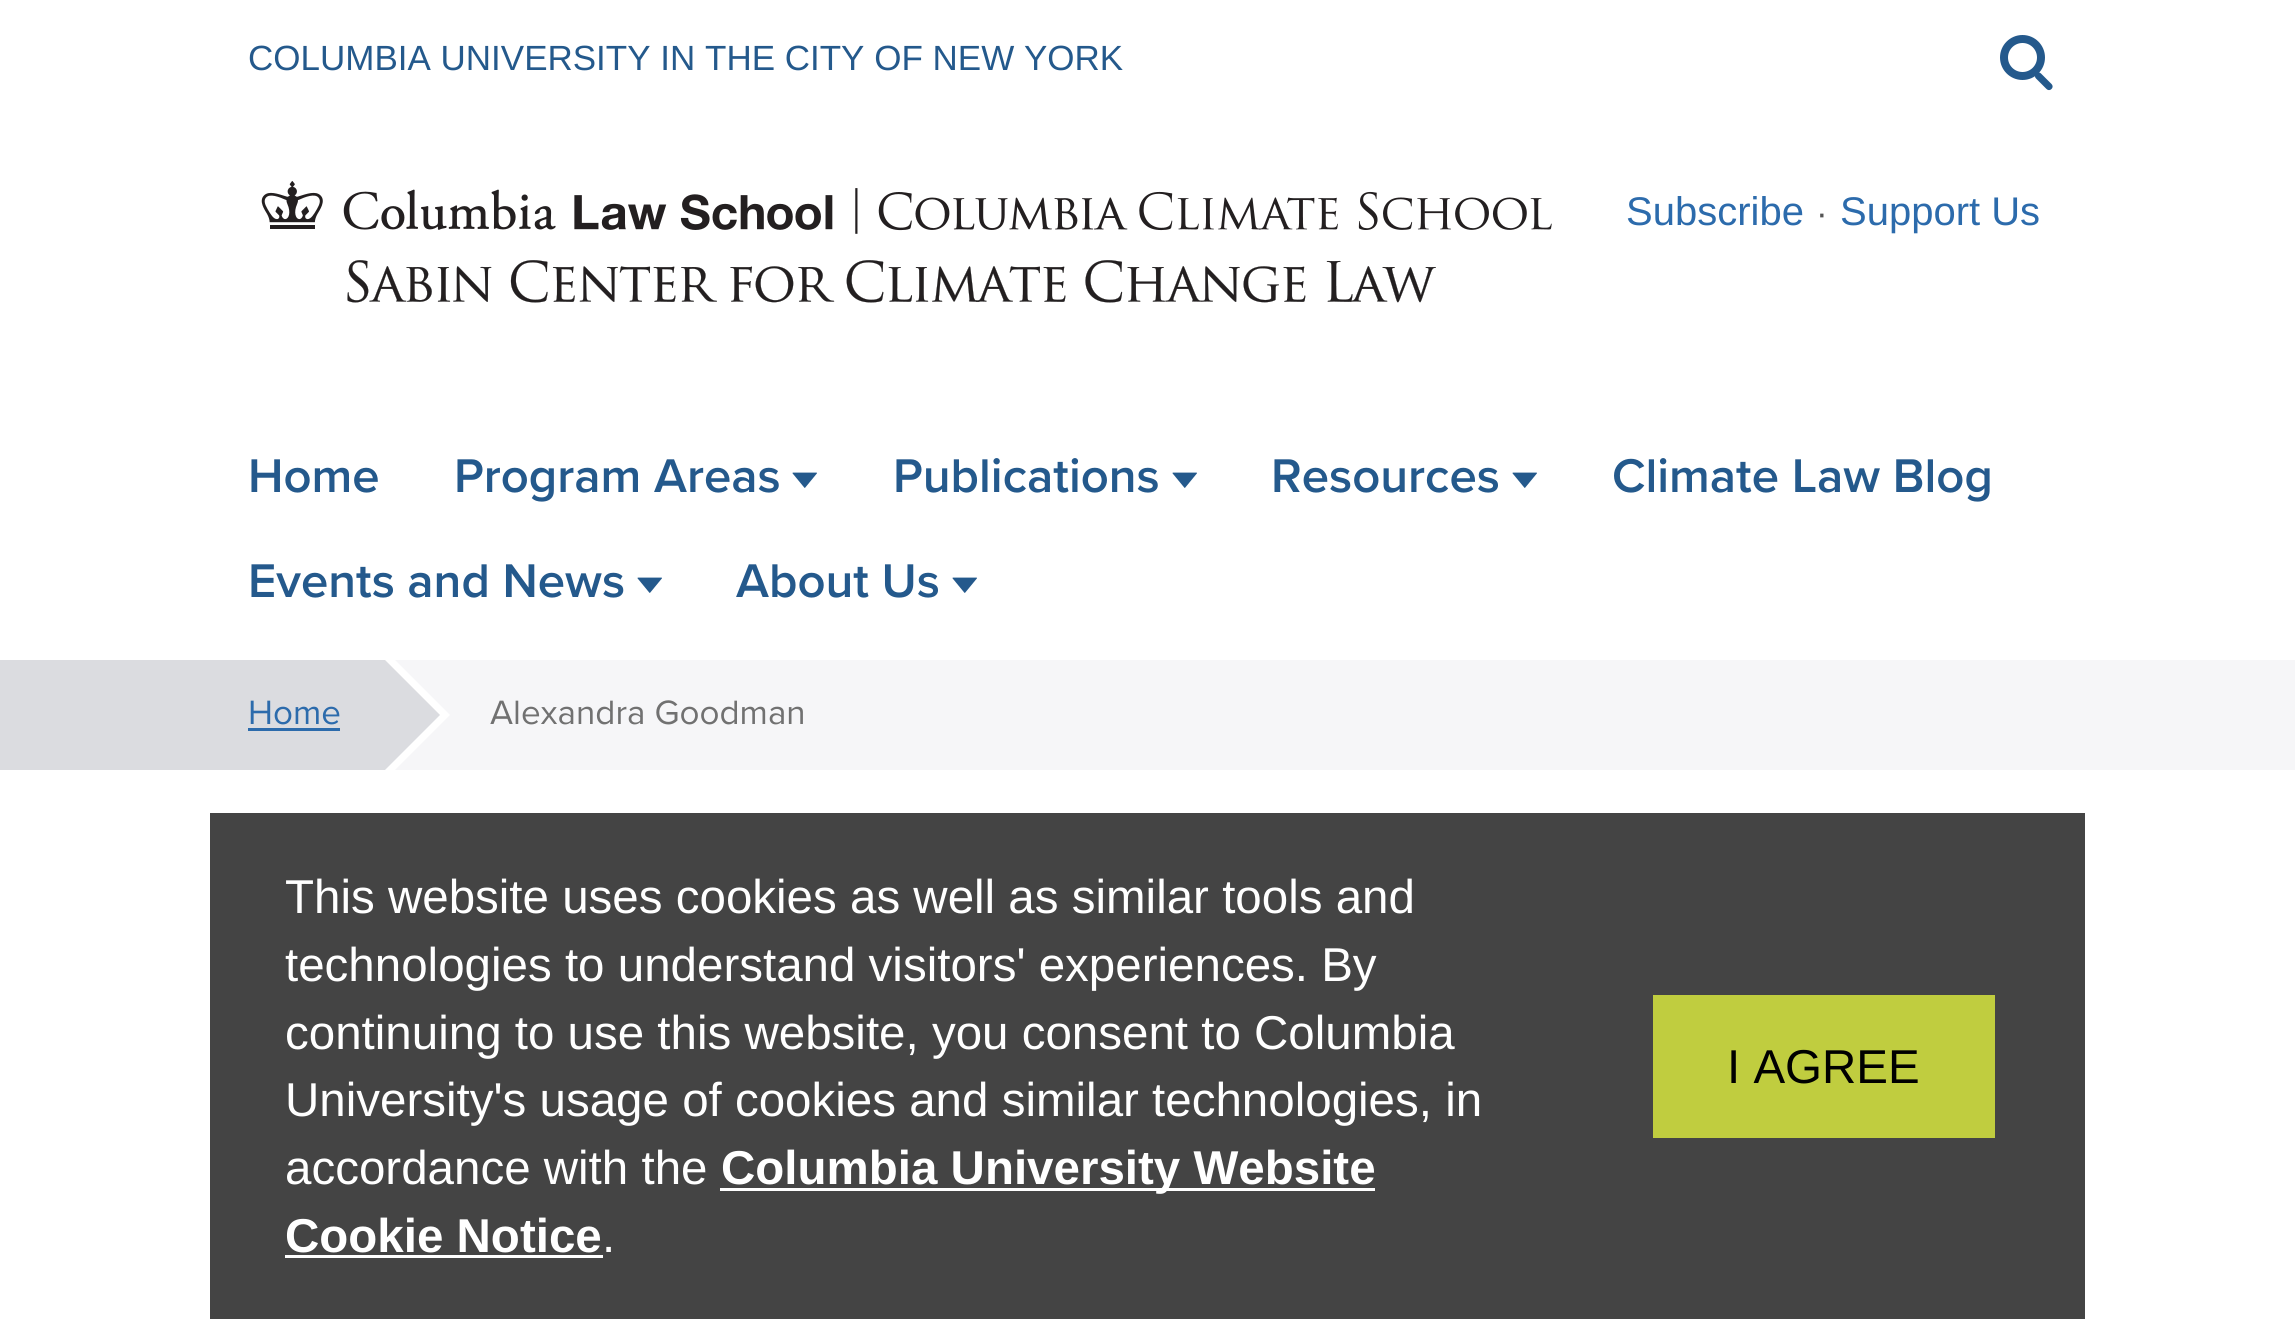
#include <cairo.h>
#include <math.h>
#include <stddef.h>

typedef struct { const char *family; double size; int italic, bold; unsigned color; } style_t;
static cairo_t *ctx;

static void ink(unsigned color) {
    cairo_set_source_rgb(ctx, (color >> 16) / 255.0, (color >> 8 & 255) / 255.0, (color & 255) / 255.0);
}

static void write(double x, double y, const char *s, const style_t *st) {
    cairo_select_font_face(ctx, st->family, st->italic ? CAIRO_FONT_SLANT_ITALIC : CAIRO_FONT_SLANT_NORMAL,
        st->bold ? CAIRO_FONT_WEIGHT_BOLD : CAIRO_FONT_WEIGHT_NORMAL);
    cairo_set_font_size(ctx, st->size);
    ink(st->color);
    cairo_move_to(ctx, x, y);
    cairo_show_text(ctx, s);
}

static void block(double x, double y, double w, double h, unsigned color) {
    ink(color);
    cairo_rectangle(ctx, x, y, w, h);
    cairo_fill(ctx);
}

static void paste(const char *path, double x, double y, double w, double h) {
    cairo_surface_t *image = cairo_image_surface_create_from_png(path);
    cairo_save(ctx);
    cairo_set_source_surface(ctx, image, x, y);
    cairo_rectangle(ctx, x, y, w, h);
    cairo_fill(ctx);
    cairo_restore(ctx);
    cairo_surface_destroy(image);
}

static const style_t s1 = {"Liberation Sans", 35, 0, 0, 0x24598c};
static const style_t s2 = {"Liberation Sans", 40, 0, 0, 0x2c6bac};
static const style_t s3 = {"Liberation Sans", 35, 0, 0, 0x555555};
static const style_t s4 = {"Proxima Nova SemiBold", 49, 0, 0, 0x24598c};
static const style_t s5 = {"Proxima Nova", 35, 0, 0, 0x2c6bac};
static const style_t s6 = {"Proxima Nova", 35, 0, 0, 0x717171};
static const style_t s7 = {"Liberation Sans", 47.5, 0, 0, 0xffffff};
static const style_t s8 = {"Liberation Sans", 47.5, 0, 1, 0xffffff};
static const style_t s9 = {"Liberation Sans", 47.5, 0, 0, 0x000000};

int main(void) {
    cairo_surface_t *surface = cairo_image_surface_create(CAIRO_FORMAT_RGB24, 2295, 1319);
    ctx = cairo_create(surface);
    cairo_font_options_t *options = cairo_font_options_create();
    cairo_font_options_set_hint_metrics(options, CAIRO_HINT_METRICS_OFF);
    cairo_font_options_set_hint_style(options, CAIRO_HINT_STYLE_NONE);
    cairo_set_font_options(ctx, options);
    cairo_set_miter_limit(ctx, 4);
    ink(0xffffff);
    cairo_paint(ctx);
    write(248, 70, "COLUMBIA UNIVERSITY IN THE CITY OF NEW YORK", &s1);
    cairo_new_path(ctx);
    cairo_arc(ctx, 2022.5, 57.5, 18.5, 0, 2 * M_PI);
    cairo_set_line_width(ctx, 8);
    cairo_stroke(ctx);
    cairo_new_path(ctx);
    cairo_move_to(ctx, 2041, 73.5);
    cairo_line_to(ctx, 2051.5, 84);
    cairo_curve_to(ctx, 2053, 85.5, 2053, 87.5, 2051.5, 89);
    cairo_curve_to(ctx, 2050, 90.5, 2048, 90.5, 2046.5, 89);
    cairo_line_to(ctx, 2036, 78.5);
    cairo_curve_to(ctx, 2034.5, 77, 2034.5, 75, 2036, 73.5);
    cairo_curve_to(ctx, 2037.5, 72, 2039.5, 72, 2041, 73.5);
    cairo_close_path(ctx);
    cairo_fill(ctx);
    paste("pic1.png", 261, 181, 1291, 122);
    write(1626, 225, "Subscribe", &s2);
    write(1816, 225, "·", &s3);
    write(1840, 225, "Support Us", &s2);
    write(248, 492, "Home", &s4);
    write(454, 492, "Program Areas", &s4);
    paste("pic2.png", 792, 472, 25, 16);
    write(893, 492, "Publications", &s4);
    paste("pic2.png", 1172, 472, 25, 16);
    write(1271, 492, "Resources", &s4);
    paste("pic2.png", 1512, 472, 25, 16);
    write(1612, 492, "Climate Law Blog", &s4);
    write(248, 597, "Events and News", &s4);
    paste("pic2.png", 637, 577, 25, 16);
    write(736, 597, "About Us", &s4);
    paste("pic2.png", 952, 577, 25, 16);
    block(395, 660, 1900, 110, 0xf6f6f8);
    cairo_save(ctx);
    cairo_rectangle(ctx, 0, 660, 2295, 110);
    cairo_clip(ctx);
    ink(0xffffff);
    cairo_new_path(ctx);
    cairo_move_to(ctx, -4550, 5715);
    cairo_line_to(ctx, -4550, -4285);
    cairo_line_to(ctx, 450, 715);
    cairo_close_path(ctx);
    cairo_fill(ctx);
    ink(0xdbdce0);
    cairo_new_path(ctx);
    cairo_move_to(ctx, -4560, 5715);
    cairo_line_to(ctx, -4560, -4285);
    cairo_line_to(ctx, 440, 715);
    cairo_close_path(ctx);
    cairo_fill(ctx);
    cairo_restore(ctx);
    write(248, 724, "Home", &s5);
    block(248, 728, 92, 3, 0x2c6bac);
    write(490, 724, "Alexandra Goodman", &s6);
    block(210, 813, 1875, 506, 0x444444);
    write(285, 913, "This website uses cookies as well as similar tools and", &s7);
    write(285, 981, "technologies to understand visitors' experiences. By", &s7);
    write(285, 1049, "continuing to use this website, you consent to Columbia", &s7);
    write(285, 1116, "University's usage of cookies and similar technologies, in", &s7);
    write(285, 1184, "accordance with the", &s7);
    block(720, 1188, 655, 3, 0xffffff);
    write(721, 1184, "Columbia University Website", &s8);
    write(285, 1252, "Cookie Notice", &s8);
    block(285, 1255, 318, 3, 0xffffff);
    write(602, 1252, ".", &s7);
    block(1653, 995, 342, 143, 0xc0cd3f);
    write(1727, 1083, "I AGREE", &s9);
    cairo_surface_write_to_png(surface, "screenshot.png");
    cairo_font_options_destroy(options);
    cairo_destroy(ctx);
    cairo_surface_destroy(surface);
    return 0;
}
